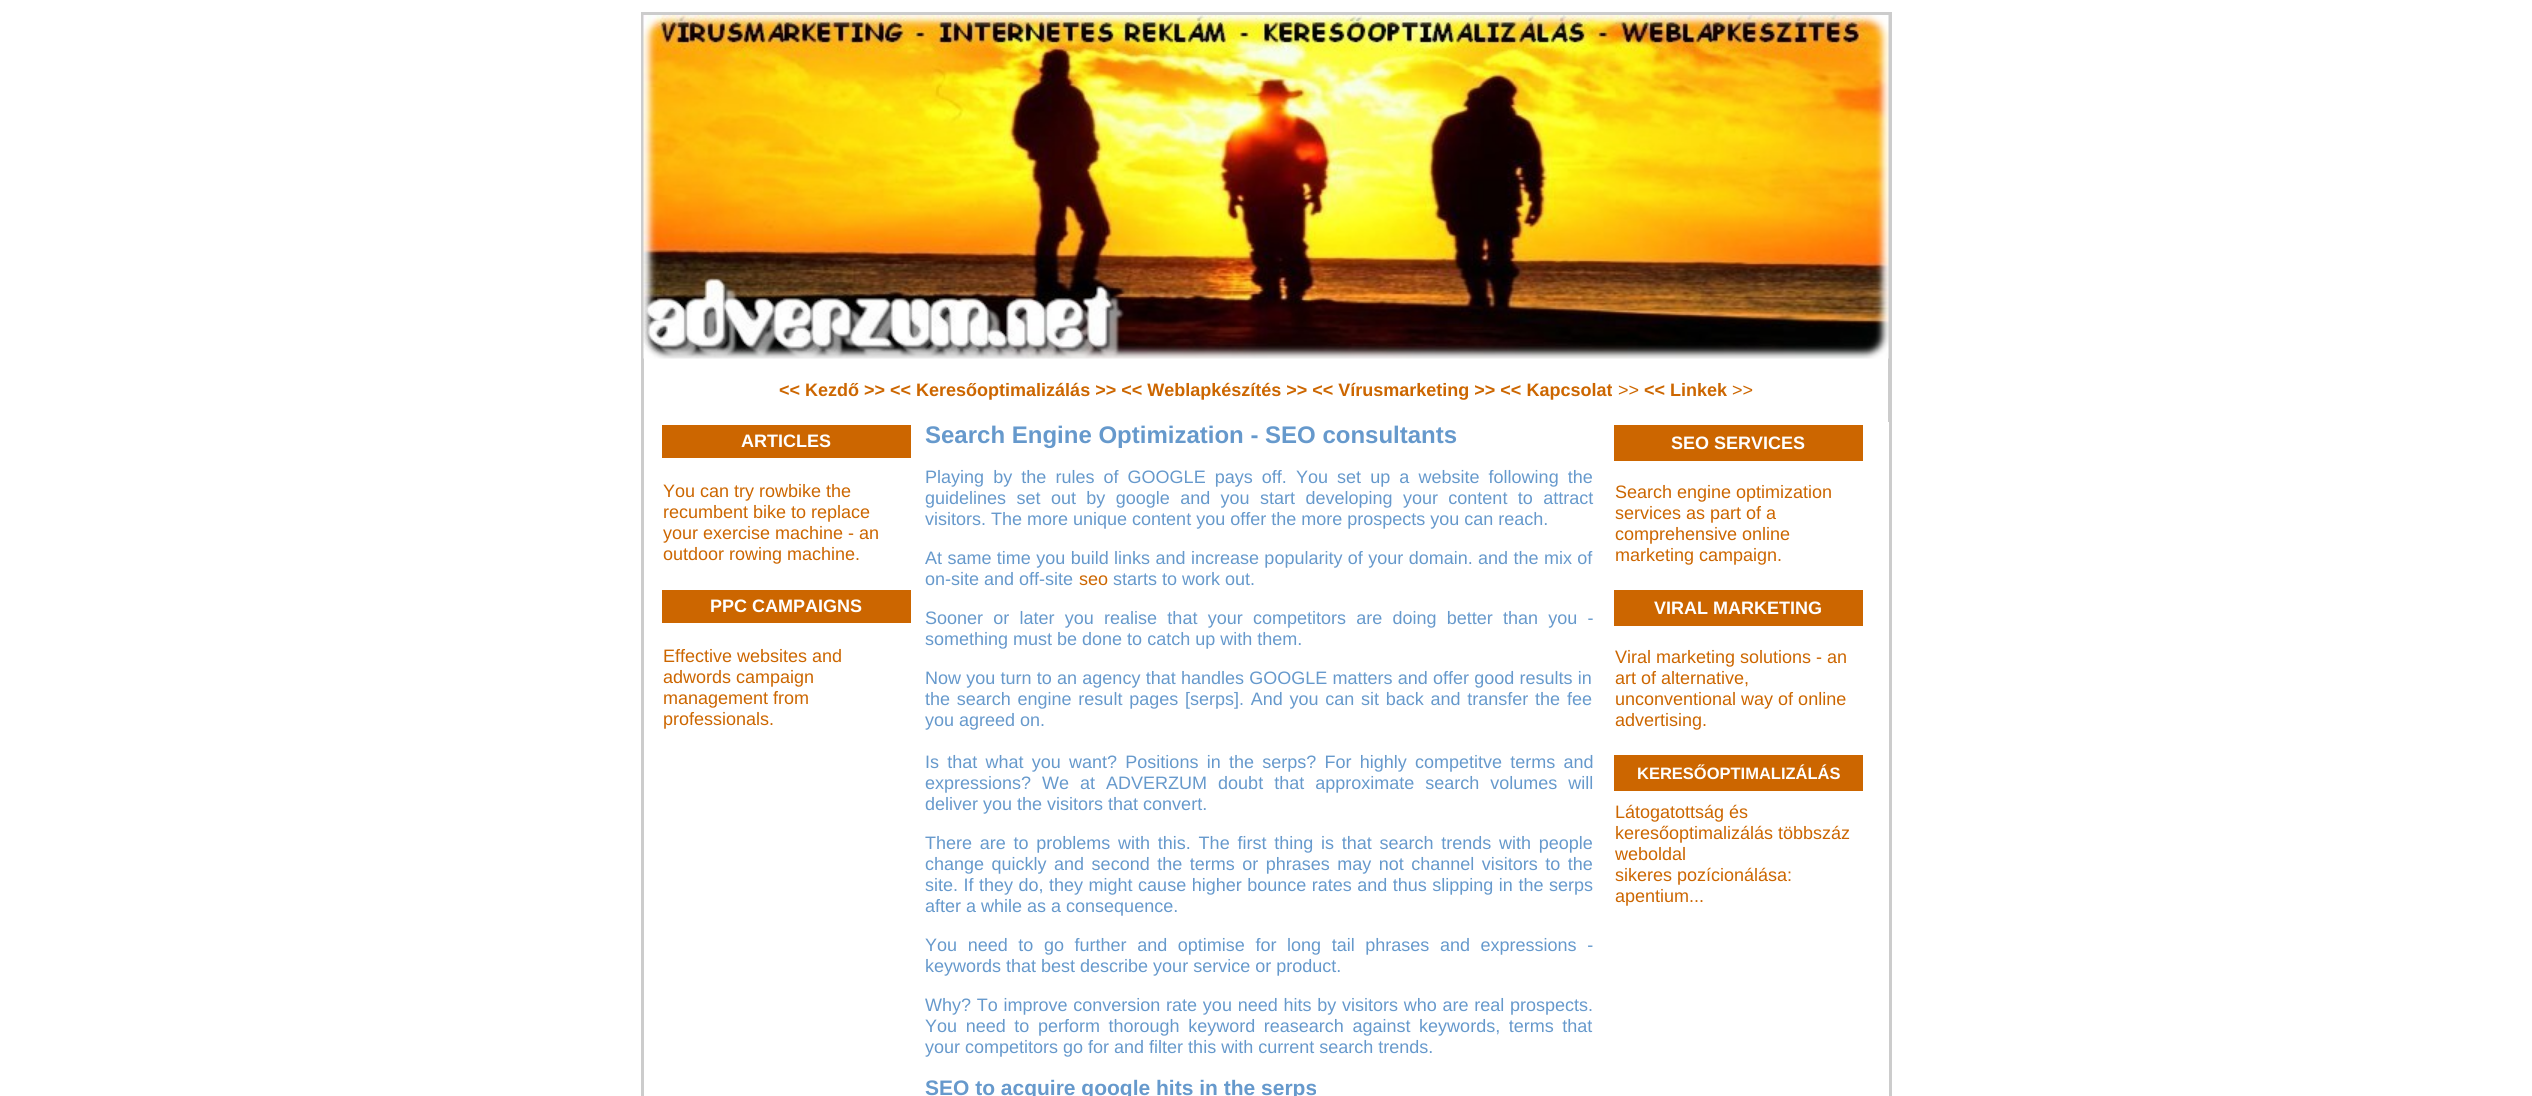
#include <cairo.h>
#include <math.h>
#include <stddef.h>

typedef struct { const char *family; double size; int italic, bold; unsigned color; } style_t;
static cairo_t *ctx;

static void ink(unsigned color) {
    cairo_set_source_rgb(ctx, (color >> 16) / 255.0, (color >> 8 & 255) / 255.0, (color & 255) / 255.0);
}

static void write(double x, double y, const char *s, const style_t *st) {
    cairo_select_font_face(ctx, st->family, st->italic ? CAIRO_FONT_SLANT_ITALIC : CAIRO_FONT_SLANT_NORMAL,
        st->bold ? CAIRO_FONT_WEIGHT_BOLD : CAIRO_FONT_WEIGHT_NORMAL);
    cairo_set_font_size(ctx, st->size);
    ink(st->color);
    cairo_move_to(ctx, x, y);
    cairo_show_text(ctx, s);
}

static void write_spaced(double x, double y, const char *s, double letter, double word) {
    cairo_move_to(ctx, x, y);
    while (*s) {
        char ch[5] = {0};
        int n = 0;
        do ch[n++] = *s++; while ((*s & 0xC0) == 0x80);
        cairo_show_text(ctx, ch);
        cairo_rel_move_to(ctx, letter + word * (*ch == ' '), 0);
    }
}

static void block(double x, double y, double w, double h, unsigned color) {
    ink(color);
    cairo_rectangle(ctx, x, y, w, h);
    cairo_fill(ctx);
}

static void paste(const char *path, double x, double y, double w, double h) {
    cairo_surface_t *image = cairo_image_surface_create_from_png(path);
    cairo_save(ctx);
    cairo_set_source_surface(ctx, image, x, y);
    cairo_rectangle(ctx, x, y, w, h);
    cairo_fill(ctx);
    cairo_restore(ctx);
    cairo_surface_destroy(image);
}

static const style_t s1 = {"Liberation Sans", 18, 0, 1, 0xcc6600};
static const style_t s2 = {"Liberation Sans", 18, 0, 0, 0xcc6600};
static const style_t s3 = {"Liberation Sans", 18, 0, 1, 0xffffff};
static const style_t s4 = {"Liberation Sans", 24, 0, 1, 0x6699cc};
static const style_t s5 = {"Liberation Sans", 18, 0, 0, 0x6699cc};
static const style_t s6 = {"Liberation Sans", 21, 0, 1, 0x6699cc};
static const style_t s7 = {"Liberation Sans", 16.5, 0, 1, 0xffffff};

int main(void) {
    cairo_surface_t *surface = cairo_image_surface_create(CAIRO_FORMAT_RGB24, 2532, 1096);
    ctx = cairo_create(surface);
    cairo_font_options_t *options = cairo_font_options_create();
    cairo_font_options_set_hint_metrics(options, CAIRO_HINT_METRICS_OFF);
    cairo_font_options_set_hint_style(options, CAIRO_HINT_STYLE_NONE);
    cairo_set_font_options(ctx, options);
    cairo_set_miter_limit(ctx, 4);
    ink(0xffffff);
    cairo_paint(ctx);
    cairo_rectangle(ctx, 642, 13, 1249, 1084);
    ink(0xcccccc);
    cairo_stroke(ctx);
    cairo_rectangle(ctx, 643, 15, 1246, 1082);
    cairo_stroke(ctx);
    paste("pic1.png", 643, 15, 1246, 344);
    write(779, 396, "<< Kezdő >> << Keresőoptimalizálás >> << Weblapkészítés >> << Vírusmarketing >> << Kapcsolat", &s1);
    write(1618, 396, ">>", &s2);
    write(1644, 396, "<< Linkek", &s1);
    write(1732, 396, ">>", &s2);
    block(662, 425, 249, 33, 0xcc6600);
    write(741, 447, "ARTICLES", &s3);
    write(663, 497, "You can try rowbike the", &s2);
    write(663, 518, "recumbent bike to replace", &s2);
    write(663, 539, "your exercise machine - an", &s2);
    write(663, 560, "outdoor rowing machine.", &s2);
    block(662, 590, 249, 33, 0xcc6600);
    write(710, 612, "PPC CAMPAIGNS", &s3);
    write(663, 662, "Effective websites and", &s2);
    write(663, 683, "adwords campaign", &s2);
    write(663, 704, "management from", &s2);
    write(663, 725, "professionals.", &s2);
    write(925, 443, "Search Engine Optimization - SEO consultants", &s4);
    cairo_select_font_face(ctx, "Liberation Sans", CAIRO_FONT_SLANT_NORMAL, CAIRO_FONT_WEIGHT_NORMAL);
    cairo_set_font_size(ctx, 18);
    write_spaced(925, 483, "Playing by the rules of GOOGLE pays off. You set up a website following the", 0, 4.1);
    write_spaced(925, 504, "guidelines set out by google and you start developing your content to attract", 0, 5.4);
    write(925, 525, "visitors. The more unique content you offer the more prospects you can reach.", &s5);
    write_spaced(925, 564, "At same time you build links and increase popularity of your domain. and the mix of", 0, 0.4);
    write(925, 585, "on-site and off-site", &s5);
    write(1079, 585, "seo", &s2);
    write(1113, 585, "starts to work out.", &s5);
    write_spaced(925, 624, "Sooner or later you realise that your competitors are doing better than you -", 0, 5.25);
    write(925, 645, "something must be done to catch up with them.", &s5);
    write_spaced(925, 684, "Now you turn to an agency that handles GOOGLE matters and offer good results in", 0, 0.25);
    write_spaced(925, 705, "the search engine result pages [serps]. And you can sit back and transfer the fee", 0, 1.75);
    write(925, 726, "you agreed on.", &s5);
    write_spaced(925, 768, "Is that what you want? Positions in the serps? For highly competitve terms and", 0, 3.25);
    write_spaced(925, 789, "expressions? We at ADVERZUM doubt that approximate search volumes will", 0, 6);
    write(925, 810, "deliver you the visitors that convert.", &s5);
    write_spaced(925, 849, "There are to problems with this. The first thing is that search trends with people", 0, 2.75);
    write_spaced(925, 870, "change quickly and second the terms or phrases may not channel visitors to the", 0, 2.5);
    write_spaced(925, 891, "site. If they do, they might cause higher bounce rates and thus slipping in the serps", 0, 0.5);
    write(925, 912, "after a while as a consequence.", &s5);
    write_spaced(925, 951, "You need to go further and optimise for long tail phrases and expressions -", 0, 5.6);
    write(925, 972, "keywords that best describe your service or product.", &s5);
    write_spaced(925, 1011, "Why? To improve conversion rate you need hits by visitors who are real prospects.", 0, 0.75);
    write_spaced(925, 1032, "You need to perform thorough keyword reasearch against keywords, terms that", 0, 3.6);
    write(925, 1053, "your competitors go for and filter this with current search trends.", &s5);
    write(925, 1095, "SEO to acquire google hits in the serps", &s6);
    block(1614, 425, 249, 36, 0xcc6600);
    write(1671, 449, "SEO SERVICES", &s3);
    write(1615, 498, "Search engine optimization", &s2);
    write(1615, 519, "services as part of a", &s2);
    write(1615, 540, "comprehensive online", &s2);
    write(1615, 561, "marketing campaign.", &s2);
    block(1614, 590, 249, 36, 0xcc6600);
    write(1654, 614, "VIRAL MARKETING", &s3);
    write(1615, 663, "Viral marketing solutions - an", &s2);
    write(1615, 684, "art of alternative,", &s2);
    write(1615, 705, "unconventional way of online", &s2);
    write(1615, 726, "advertising.", &s2);
    block(1614, 755, 249, 36, 0xcc6600);
    write(1637, 779, "KERESŐOPTIMALIZÁLÁS", &s7);
    write(1615, 818, "Látogatottság és", &s2);
    write(1615, 839, "keresőoptimalizálás többszáz", &s2);
    write(1615, 860, "weboldal", &s2);
    write(1615, 881, "sikeres pozícionálása:", &s2);
    write(1615, 902, "apentium...", &s2);
    block(1888, 422, 1, 674, 0xffffff);
    cairo_surface_write_to_png(surface, "screenshot.png");
    cairo_font_options_destroy(options);
    cairo_destroy(ctx);
    cairo_surface_destroy(surface);
    return 0;
}
